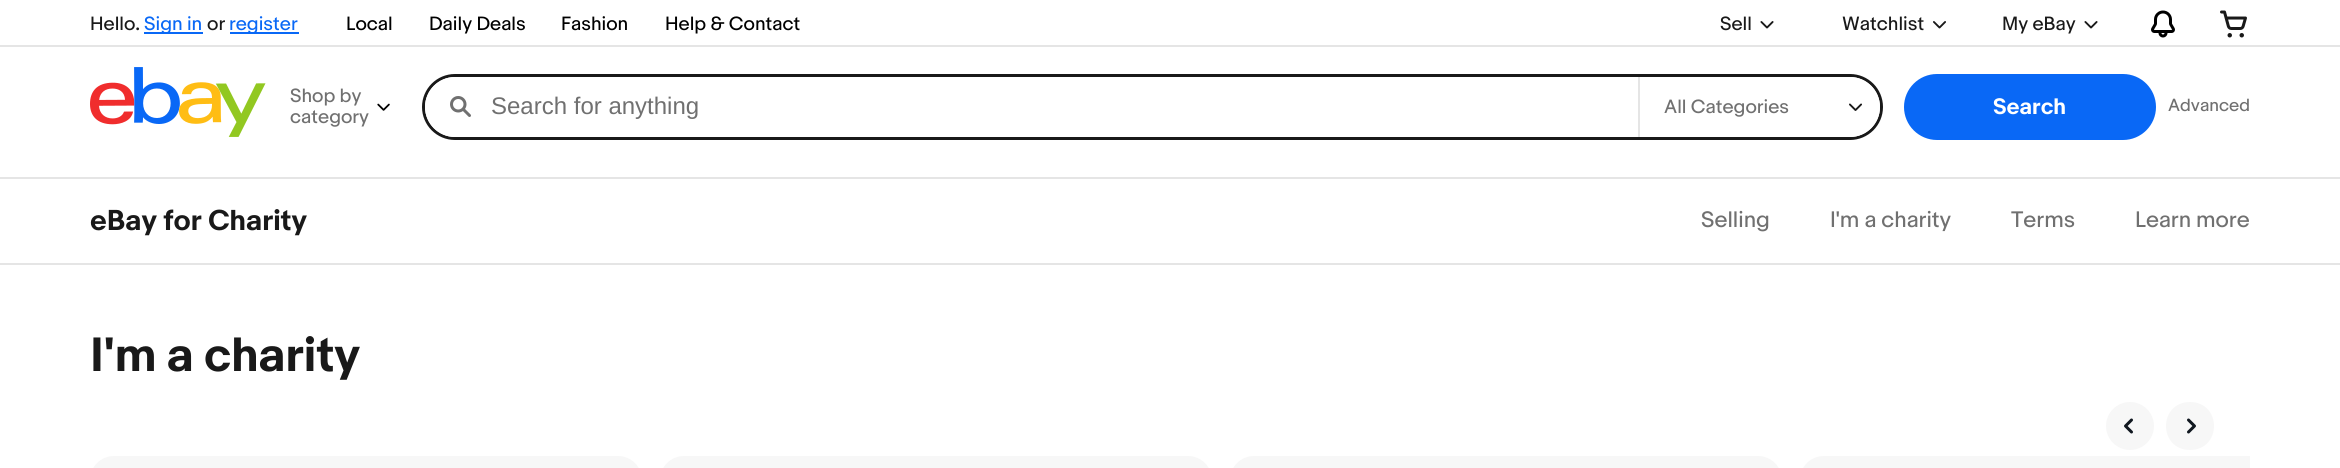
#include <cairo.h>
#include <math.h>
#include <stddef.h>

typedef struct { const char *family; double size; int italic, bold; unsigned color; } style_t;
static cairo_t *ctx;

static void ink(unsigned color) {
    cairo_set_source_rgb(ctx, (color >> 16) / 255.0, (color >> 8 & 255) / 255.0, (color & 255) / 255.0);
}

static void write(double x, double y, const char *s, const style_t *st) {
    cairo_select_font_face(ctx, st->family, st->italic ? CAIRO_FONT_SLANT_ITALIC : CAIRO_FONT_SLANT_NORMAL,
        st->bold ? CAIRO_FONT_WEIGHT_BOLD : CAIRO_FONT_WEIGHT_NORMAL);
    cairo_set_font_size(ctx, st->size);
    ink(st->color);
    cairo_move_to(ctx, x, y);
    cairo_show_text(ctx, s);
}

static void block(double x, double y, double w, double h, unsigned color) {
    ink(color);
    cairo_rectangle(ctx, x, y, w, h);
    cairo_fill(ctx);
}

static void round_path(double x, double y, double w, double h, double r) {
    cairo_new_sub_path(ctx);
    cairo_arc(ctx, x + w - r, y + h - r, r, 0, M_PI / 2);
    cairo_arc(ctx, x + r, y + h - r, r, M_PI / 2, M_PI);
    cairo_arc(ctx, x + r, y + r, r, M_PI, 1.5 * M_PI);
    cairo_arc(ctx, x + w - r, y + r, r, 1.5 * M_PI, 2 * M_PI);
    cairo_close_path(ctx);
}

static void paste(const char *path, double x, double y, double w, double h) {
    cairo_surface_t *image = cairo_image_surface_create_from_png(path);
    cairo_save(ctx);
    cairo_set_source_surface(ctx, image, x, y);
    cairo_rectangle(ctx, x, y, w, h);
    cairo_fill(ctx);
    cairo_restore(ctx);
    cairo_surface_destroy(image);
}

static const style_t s1 = {"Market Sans", 18, 0, 0, 0x191919};
static const style_t s2 = {"Market Sans", 18, 0, 0, 0x0968f6};
static const style_t s3 = {"Market Sans", 18, 0, 0, 0x000000};
static const style_t s4 = {"Market Sans", 18, 0, 0, 0x707070};
static const style_t s5 = {"Liberation Sans", 24, 0, 0, 0x707070};
static const style_t s6 = {"Market Sans", 21, 0, 1, 0xffffff};
static const style_t s7 = {"Market Sans", 16.5, 0, 0, 0x707070};
static const style_t s8 = {"Market Sans", 27, 0, 1, 0x191919};
static const style_t s9 = {"Market Sans", 21, 0, 0, 0x707070};
static const style_t s10 = {"Market Sans", 45, 0, 1, 0x191919};

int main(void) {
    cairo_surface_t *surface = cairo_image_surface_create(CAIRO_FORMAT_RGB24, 2340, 468);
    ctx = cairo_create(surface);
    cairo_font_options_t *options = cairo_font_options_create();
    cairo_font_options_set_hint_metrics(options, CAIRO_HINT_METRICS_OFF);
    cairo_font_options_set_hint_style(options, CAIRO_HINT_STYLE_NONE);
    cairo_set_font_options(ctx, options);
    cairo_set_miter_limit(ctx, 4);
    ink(0xffffff);
    cairo_paint(ctx);
    write(90, 30, "Hello.", &s1);
    block(144, 32, 59, 2, 0x0968f6);
    write(144, 30, "Sign in", &s2);
    write(207, 30, "or", &s1);
    block(230, 32, 69, 2, 0x0968f6);
    write(229, 30, "register", &s2);
    write(346, 30, "Local", &s3);
    write(429, 30, "Daily Deals", &s3);
    write(561, 30, "Fashion", &s3);
    write(665, 30, "Help & Contact", &s3);
    write(1720, 30, "Sell", &s1);
    paste("pic1.png", 1760, 21, 14, 8);
    write(1842, 30, "Watchlist", &s1);
    paste("pic2.png", 1933, 21, 13, 8);
    write(2002, 30, "My eBay", &s1);
    paste("pic1.png", 2084, 21, 14, 8);
    paste("pic3.png", 2151, 10, 24, 28);
    paste("pic4.png", 2220, 10, 27, 28);
    paste("pic5.png", 90, 67, 176, 70);
    write(290, 102, "Shop by", &s4);
    write(290, 123, "category", &s4);
    paste("pic6.png", 377, 103, 13, 8);
    round_path(423.5, 75.5, 1458, 63, 31.5);
    ink(0x191919);
    cairo_set_line_width(ctx, 3);
    cairo_stroke(ctx);
    block(1638, 77, 2, 60, 0xe5e5e5);
    ink(0xffffff);
    cairo_new_path(ctx);
    cairo_move_to(ctx, 455, 77);
    cairo_line_to(ctx, 1638, 77);
    cairo_line_to(ctx, 1638, 137);
    cairo_line_to(ctx, 455, 137);
    cairo_curve_to(ctx, 438.5, 137, 425, 123.5, 425, 107);
    cairo_curve_to(ctx, 425, 90.5, 438.5, 77, 455, 77);
    cairo_close_path(ctx);
    cairo_fill(ctx);
    paste("pic7.png", 450, 96, 21, 21);
    write(491, 114, "Search for anything", &s5);
    ink(0xffffff);
    cairo_new_path(ctx);
    cairo_move_to(ctx, 1640, 77);
    cairo_line_to(ctx, 1850, 77);
    cairo_curve_to(ctx, 1866.5, 77, 1880, 90.5, 1880, 107);
    cairo_curve_to(ctx, 1880, 123.5, 1866.5, 137, 1850, 137);
    cairo_line_to(ctx, 1640, 137);
    cairo_close_path(ctx);
    cairo_fill(ctx);
    paste("pic8.png", 1849, 103, 13, 8);
    write(1664, 113, "All Categories", &s4);
    ink(0x0968f6);
    round_path(1905, 75, 250, 64, 32);
    cairo_fill_preserve(ctx);
    cairo_set_line_width(ctx, 2);
    cairo_stroke(ctx);
    write(1993, 114, "Search", &s6);
    write(2168, 111, "Advanced", &s7);
    block(0, 45, 2340, 2, 0xe5e5e5);
    block(0, 177, 2340, 2, 0xe5e5e5);
    block(0, 263, 2340, 2, 0xe5e5e5);
    write(90, 230, "eBay for Charity", &s8);
    write(1701, 227, "Selling", &s9);
    write(1830, 227, "I'm a charity", &s9);
    write(2011, 227, "Terms", &s9);
    write(2135, 227, "Learn more", &s9);
    write(90, 371, "I'm a charity", &s10);
    ink(0xf7f7f7);
    cairo_new_path(ctx);
    cairo_arc(ctx, 2130, 426, 24, 0, 2 * M_PI);
    cairo_fill(ctx);
    cairo_new_path(ctx);
    cairo_move_to(ctx, 2131.5, 432);
    cairo_line_to(ctx, 2125.5, 426);
    cairo_line_to(ctx, 2131.5, 420);
    ink(0x111820);
    cairo_set_line_width(ctx, 3);
    cairo_set_line_cap(ctx, CAIRO_LINE_CAP_ROUND);
    cairo_set_line_join(ctx, CAIRO_LINE_JOIN_ROUND);
    cairo_stroke(ctx);
    ink(0xf7f7f7);
    cairo_new_path(ctx);
    cairo_move_to(ctx, 2190, 450);
    cairo_curve_to(ctx, 2158, 450, 2158, 402, 2190, 402);
    cairo_curve_to(ctx, 2222, 402, 2222, 450, 2190, 450);
    cairo_close_path(ctx);
    cairo_fill(ctx);
    cairo_new_path(ctx);
    cairo_move_to(ctx, 2188.5, 420);
    cairo_line_to(ctx, 2194.5, 426);
    cairo_line_to(ctx, 2188.5, 432);
    ink(0x111820);
    cairo_stroke(ctx);
    ink(0xf7f7f7);
    round_path(90, 456, 552, 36, 24);
    cairo_fill(ctx);
    round_path(660, 456, 552, 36, 24);
    cairo_fill(ctx);
    round_path(1230, 456, 552, 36, 24);
    cairo_fill(ctx);
    cairo_new_path(ctx);
    cairo_move_to(ctx, 1824, 456);
    cairo_line_to(ctx, 2250, 456);
    cairo_line_to(ctx, 2250, 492);
    cairo_line_to(ctx, 1824, 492);
    cairo_curve_to(ctx, 1810.5, 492, 1800, 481.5, 1800, 468);
    cairo_line_to(ctx, 1800, 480);
    cairo_curve_to(ctx, 1800, 466.5, 1810.5, 456, 1824, 456);
    cairo_close_path(ctx);
    cairo_fill(ctx);
    cairo_surface_write_to_png(surface, "screenshot.png");
    cairo_font_options_destroy(options);
    cairo_destroy(ctx);
    cairo_surface_destroy(surface);
    return 0;
}
